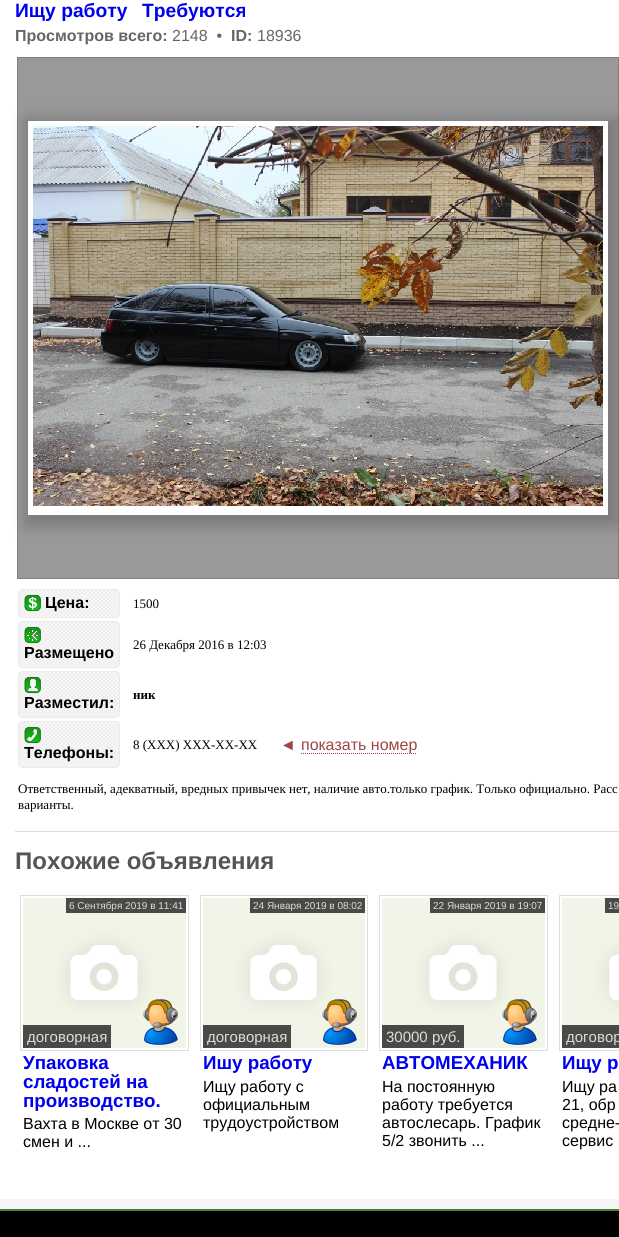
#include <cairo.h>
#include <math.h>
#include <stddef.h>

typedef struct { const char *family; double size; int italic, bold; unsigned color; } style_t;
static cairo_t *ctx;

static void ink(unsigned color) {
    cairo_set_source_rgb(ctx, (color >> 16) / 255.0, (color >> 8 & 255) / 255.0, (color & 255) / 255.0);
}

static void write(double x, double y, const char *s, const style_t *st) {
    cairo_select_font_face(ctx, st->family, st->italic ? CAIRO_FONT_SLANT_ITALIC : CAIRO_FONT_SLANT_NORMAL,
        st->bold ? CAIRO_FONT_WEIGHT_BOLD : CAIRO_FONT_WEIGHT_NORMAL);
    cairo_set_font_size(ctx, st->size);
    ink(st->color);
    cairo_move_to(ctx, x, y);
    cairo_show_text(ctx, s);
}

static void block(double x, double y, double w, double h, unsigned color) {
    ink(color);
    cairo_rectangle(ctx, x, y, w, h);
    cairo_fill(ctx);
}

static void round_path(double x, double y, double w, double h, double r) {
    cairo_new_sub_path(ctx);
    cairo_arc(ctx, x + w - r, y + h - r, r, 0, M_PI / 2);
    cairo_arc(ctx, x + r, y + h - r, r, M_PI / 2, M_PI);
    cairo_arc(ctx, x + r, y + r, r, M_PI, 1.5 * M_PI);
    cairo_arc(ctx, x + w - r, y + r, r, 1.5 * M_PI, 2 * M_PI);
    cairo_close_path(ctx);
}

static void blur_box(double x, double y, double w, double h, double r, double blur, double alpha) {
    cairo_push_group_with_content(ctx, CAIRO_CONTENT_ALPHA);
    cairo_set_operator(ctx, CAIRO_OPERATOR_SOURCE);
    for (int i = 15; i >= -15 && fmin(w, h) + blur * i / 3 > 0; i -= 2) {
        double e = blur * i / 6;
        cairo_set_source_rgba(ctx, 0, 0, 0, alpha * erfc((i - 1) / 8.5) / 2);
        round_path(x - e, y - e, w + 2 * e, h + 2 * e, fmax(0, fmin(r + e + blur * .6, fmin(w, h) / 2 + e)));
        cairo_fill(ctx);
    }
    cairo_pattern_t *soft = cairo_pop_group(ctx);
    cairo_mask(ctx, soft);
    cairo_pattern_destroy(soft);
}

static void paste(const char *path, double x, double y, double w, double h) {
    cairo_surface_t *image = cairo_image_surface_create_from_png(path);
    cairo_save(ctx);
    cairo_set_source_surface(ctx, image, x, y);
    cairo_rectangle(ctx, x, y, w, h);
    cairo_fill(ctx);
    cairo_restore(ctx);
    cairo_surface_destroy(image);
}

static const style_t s1 = {"Liberation Sans", 19.25, 0, 1, 0x0000ee};
static const style_t s2 = {"Liberation Sans", 16, 0, 1, 0x666666};
static const style_t s3 = {"Liberation Sans", 16, 0, 0, 0x666666};
static const style_t s4 = {"Liberation Sans", 16, 0, 1, 0x000000};
static const style_t s5 = {"Liberation Serif", 13, 0, 0, 0x000000};
static const style_t s6 = {"Liberation Serif", 13, 0, 1, 0x000000};
static const style_t s7 = {"Liberation Sans", 16, 0, 0, 0xa14446};
static const style_t s8 = {"Liberation Sans", 24, 0, 1, 0x555555};
static const style_t s9 = {"Liberation Sans", 10, 0, 0, 0xdddddd};
static const style_t s10 = {"Liberation Sans", 15, 0, 0, 0xdddddd};
static const style_t s11 = {"Liberation Sans", 18.75, 0, 1, 0x0000ee};
static const style_t s12 = {"Liberation Sans", 16, 0, 0, 0x000000};

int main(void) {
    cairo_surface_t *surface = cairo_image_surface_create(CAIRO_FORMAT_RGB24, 619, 1237);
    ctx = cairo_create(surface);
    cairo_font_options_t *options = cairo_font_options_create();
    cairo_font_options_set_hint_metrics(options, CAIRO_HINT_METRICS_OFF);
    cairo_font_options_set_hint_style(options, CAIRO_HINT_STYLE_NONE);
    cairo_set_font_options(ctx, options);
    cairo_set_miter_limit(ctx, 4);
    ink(0xf6f6f6);
    cairo_paint(ctx);
    block(0, 0, 619, 1199, 0xffffff);
    write(15, 17, "Ищу работу", &s1);
    write(142, 17, "Требуются", &s1);
    write(15, 41, "Просмотров всего:", &s2);
    write(172, 41, "2148  •", &s3);
    write(231, 41, "ID:", &s2);
    write(257, 41, "18936", &s3);
    ink(0x999999);
    cairo_rectangle(ctx, 17.5, 57.5, 601, 521);
    cairo_fill_preserve(ctx);
    ink(0x808080);
    cairo_set_line_width(ctx, 1);
    cairo_stroke(ctx);
    ink(0x000000);
    blur_box(25, 118, 594, 408, 0, 7.5, 0.2);
    block(28, 121, 580, 394, 0xffffff);
    paste("pic1.png", 33, 126, 570, 380);
    paste("pic2.png", 18, 589, 102, 29);
    round_path(18.5, 589.5, 101, 28, 4.5);
    ink(0xebeaea);
    cairo_stroke(ctx);
    paste("pic3.png", 24, 594, 17, 18);
    write(45, 608, "Цена:", &s4);
    write(133, 608, "1500", &s5);
    write(133, 649, "26 Декабря 2016 в 12:03", &s5);
    paste("pic4.png", 18, 621, 102, 47);
    round_path(18.5, 621.5, 101, 46, 4.5);
    ink(0xebeaea);
    cairo_stroke(ctx);
    paste("pic5.png", 24, 626, 17, 18);
    write(24, 658, "Размещено", &s4);
    write(133, 699, "ник", &s6);
    paste("pic6.png", 18, 671, 102, 47);
    round_path(18.5, 671.5, 101, 46, 4.5);
    ink(0xebeaea);
    cairo_stroke(ctx);
    paste("pic7.png", 24, 676, 17, 18);
    write(24, 708, "Разместил:", &s4);
    paste("pic6.png", 18, 721, 102, 47);
    round_path(18.5, 721.5, 101, 46, 4.5);
    ink(0xebeaea);
    cairo_stroke(ctx);
    paste("pic8.png", 24, 726, 17, 18);
    write(24, 758, "Телефоны:", &s4);
    write(133, 749, "8 (XXX) XXX-XX-XX", &s5);
    write(280, 750, "◄", &s7);
    cairo_new_path(ctx);
    cairo_move_to(ctx, 301, 753.5);
    cairo_line_to(ctx, 417, 753.5);
    cairo_set_dash(ctx, (double[]){1, 1}, 2, 0);
    cairo_stroke(ctx);
    write(301, 750, "показать номер", &s7);
    write(18, 793, "Ответственный, адекватный, вредных привычек нет, наличие авто.только график. Только официально. Расс", &s5);
    write(18, 809, "варианты.", &s5);
    block(15, 831, 604, 1, 0xdddddd);
    write(15, 869, "Похожие объявления", &s8);
    cairo_rectangle(ctx, 20.5, 895.5, 168, 155);
    ink(0xdddddd);
    cairo_set_dash(ctx, NULL, 0, 0);
    cairo_stroke(ctx);
    paste("pic9.png", 23, 898, 163, 150);
    block(66, 898, 120, 15, 0x484a46);
    write(69, 909, "6 Сентября 2019 в 11:41", &s9);
    block(23, 1025, 88, 23, 0x484a46);
    write(27, 1042, "договорная", &s10);
    paste("pic10.png", 143, 999, 35, 46);
    write(23, 1069, "Упаковка", &s11);
    write(23, 1088, "сладостей на", &s11);
    write(23, 1107, "производство.", &s11);
    write(23, 1129, "Вахта в Москве от 30", &s12);
    write(23, 1147, "смен и ...", &s12);
    cairo_rectangle(ctx, 200.5, 895.5, 167, 155);
    ink(0xdddddd);
    cairo_stroke(ctx);
    paste("pic11.png", 203, 898, 162, 150);
    block(250, 898, 115, 15, 0x484a46);
    write(253, 909, "24 Января 2019 в 08:02", &s9);
    block(203, 1025, 88, 23, 0x484a46);
    write(207, 1042, "договорная", &s10);
    paste("pic10.png", 322, 999, 35, 46);
    write(203, 1069, "Ишу работу", &s11);
    write(203, 1092, "Ищу работу с", &s12);
    write(203, 1110, "официальным", &s12);
    write(203, 1128, "трудоустройством", &s12);
    cairo_rectangle(ctx, 379.5, 895.5, 168, 155);
    ink(0xdddddd);
    cairo_stroke(ctx);
    paste("pic9.png", 382, 898, 163, 150);
    block(430, 898, 115, 15, 0x484a46);
    write(433, 909, "22 Января 2019 в 19:07", &s9);
    block(382, 1025, 82, 23, 0x484a46);
    write(386, 1042, "30000 руб.", &s10);
    paste("pic10.png", 502, 999, 35, 46);
    write(382, 1069, "АВТОМЕХАНИК", &s11);
    write(382, 1092, "На постоянную", &s12);
    write(382, 1110, "работу требуется", &s12);
    write(382, 1128, "автослесарь. График", &s12);
    write(382, 1146, "5/2 звонить ...", &s12);
    cairo_rectangle(ctx, 559.5, 895.5, 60, 155);
    ink(0xdddddd);
    cairo_stroke(ctx);
    paste("pic12.png", 562, 898, 57, 127);
    block(605, 898, 14, 15, 0x484a46);
    write(608, 909, "19", &s9);
    block(562, 1025, 57, 23, 0x484a46);
    write(566, 1042, "договор", &s10);
    write(562, 1069, "Ищу р", &s11);
    write(562, 1092, "Ищу ра", &s12);
    write(562, 1110, "21, обр", &s12);
    write(562, 1128, "средне-", &s12);
    write(562, 1146, "сервис", &s12);
    block(0, 1211, 619, 26, 0x000000);
    block(0, 1209, 619, 2, 0x4b7e3b);
    cairo_surface_write_to_png(surface, "screenshot.png");
    cairo_font_options_destroy(options);
    cairo_destroy(ctx);
    cairo_surface_destroy(surface);
    return 0;
}
